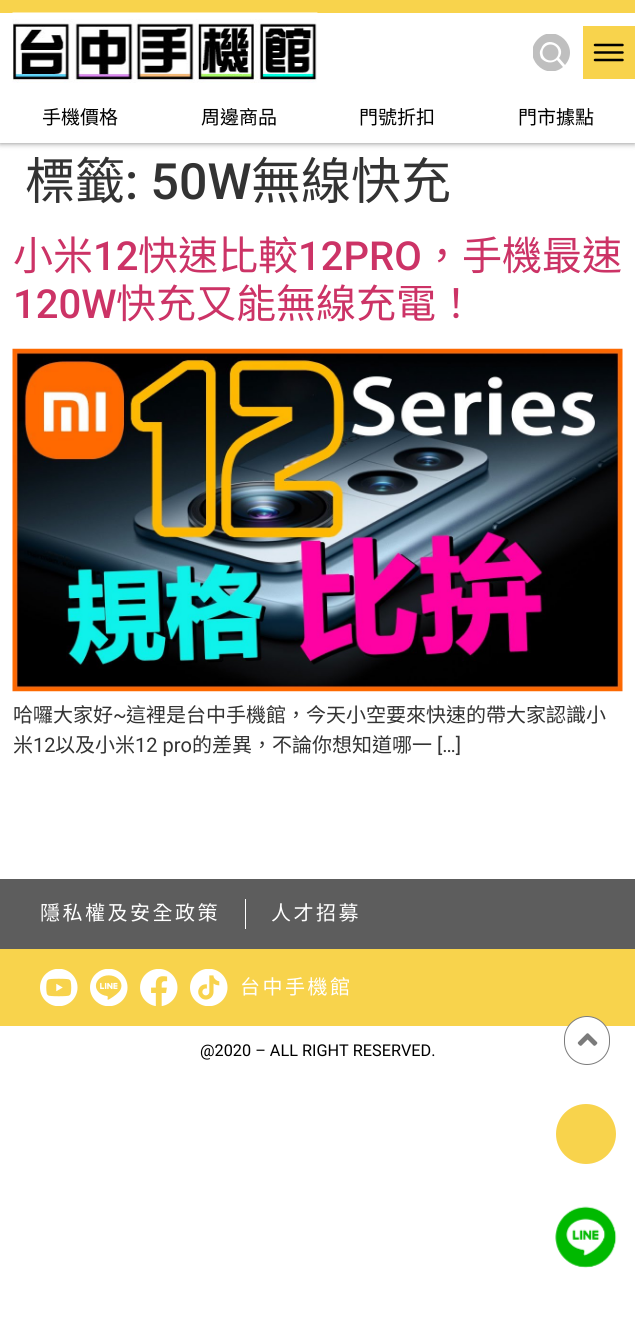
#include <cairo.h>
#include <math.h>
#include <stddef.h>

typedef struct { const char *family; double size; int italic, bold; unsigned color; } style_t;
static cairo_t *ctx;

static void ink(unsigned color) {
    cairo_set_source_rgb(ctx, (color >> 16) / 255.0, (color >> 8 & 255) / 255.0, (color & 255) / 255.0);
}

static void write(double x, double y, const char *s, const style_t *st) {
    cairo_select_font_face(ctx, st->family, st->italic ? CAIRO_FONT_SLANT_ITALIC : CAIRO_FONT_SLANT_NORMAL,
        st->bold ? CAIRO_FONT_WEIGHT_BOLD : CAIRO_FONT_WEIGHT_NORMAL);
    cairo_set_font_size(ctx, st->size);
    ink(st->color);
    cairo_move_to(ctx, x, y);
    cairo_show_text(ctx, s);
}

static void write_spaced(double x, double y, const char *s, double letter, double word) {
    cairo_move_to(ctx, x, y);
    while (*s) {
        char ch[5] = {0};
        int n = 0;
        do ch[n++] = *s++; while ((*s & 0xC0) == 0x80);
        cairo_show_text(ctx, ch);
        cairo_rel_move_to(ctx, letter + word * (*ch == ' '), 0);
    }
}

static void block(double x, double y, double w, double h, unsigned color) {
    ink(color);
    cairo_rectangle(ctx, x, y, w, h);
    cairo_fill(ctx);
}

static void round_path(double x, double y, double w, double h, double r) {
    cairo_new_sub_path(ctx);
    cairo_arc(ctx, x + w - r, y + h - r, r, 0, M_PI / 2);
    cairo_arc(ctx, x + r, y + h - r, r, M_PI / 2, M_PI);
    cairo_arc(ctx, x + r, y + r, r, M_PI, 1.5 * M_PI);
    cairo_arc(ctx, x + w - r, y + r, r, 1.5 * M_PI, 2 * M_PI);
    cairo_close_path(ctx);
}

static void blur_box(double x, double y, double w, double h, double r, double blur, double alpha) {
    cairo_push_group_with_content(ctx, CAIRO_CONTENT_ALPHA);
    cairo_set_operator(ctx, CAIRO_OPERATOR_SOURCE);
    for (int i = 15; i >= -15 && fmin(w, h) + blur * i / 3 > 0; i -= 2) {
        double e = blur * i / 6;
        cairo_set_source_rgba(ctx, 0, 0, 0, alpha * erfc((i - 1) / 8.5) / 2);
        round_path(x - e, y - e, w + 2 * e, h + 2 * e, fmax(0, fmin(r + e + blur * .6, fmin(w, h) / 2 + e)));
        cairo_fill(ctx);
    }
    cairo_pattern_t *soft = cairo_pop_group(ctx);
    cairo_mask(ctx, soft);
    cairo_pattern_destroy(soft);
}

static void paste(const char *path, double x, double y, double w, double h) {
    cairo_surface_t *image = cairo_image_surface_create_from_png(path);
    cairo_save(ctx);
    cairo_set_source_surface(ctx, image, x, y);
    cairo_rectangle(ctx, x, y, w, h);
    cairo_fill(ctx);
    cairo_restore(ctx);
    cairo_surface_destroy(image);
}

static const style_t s1 = {"Noto Sans CJK TC", 19, 0, 0, 0x000000};
static const style_t s2 = {"Noto Sans CJK TC", 50, 0, 0, 0x333333};
static const style_t s3 = {"Roboto Medium", 50, 0, 0, 0x333333};
static const style_t s4 = {"Noto Sans CJK TC", 40, 0, 0, 0xcc3366};
static const style_t s5 = {"Roboto Medium", 40, 0, 0, 0xcc3366};
static const style_t s6 = {"Noto Sans CJK TC", 20, 0, 0, 0x333333};
static const style_t s7 = {"Roboto", 20, 0, 0, 0x333333};
static const style_t s8 = {"Roboto", 16.25, 0, 0, 0x000000};

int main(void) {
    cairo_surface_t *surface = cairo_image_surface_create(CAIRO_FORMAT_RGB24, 635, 1337);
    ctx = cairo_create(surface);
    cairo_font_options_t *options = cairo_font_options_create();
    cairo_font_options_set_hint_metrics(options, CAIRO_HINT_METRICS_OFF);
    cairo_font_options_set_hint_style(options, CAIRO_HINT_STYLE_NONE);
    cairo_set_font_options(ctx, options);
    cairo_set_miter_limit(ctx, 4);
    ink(0xffffff);
    cairo_paint(ctx);
    ink(0x000000);
    blur_box(0, 0, 635, 143, 0, 3, 0.5);
    block(0, 13, 635, 130, 0xffffff);
    block(0, 0, 635, 13, 0xf8d34c);
    paste("pic1.png", 12, 12, 306, 71);
    ink(0xbfbfbf);
    cairo_arc(ctx, 550.5, 52.5, 8, 0, 2 * M_PI);
    cairo_fill(ctx);
    cairo_save(ctx);
    cairo_rectangle(ctx, 533, 34, 37, 37);
    cairo_clip(ctx);
    cairo_set_fill_rule(ctx, CAIRO_FILL_RULE_EVEN_ODD);
    cairo_new_path(ctx);
    cairo_move_to(ctx, 557, 60);
    cairo_curve_to(ctx, 552, 64, 545, 63, 541, 58);
    cairo_curve_to(ctx, 540, 55, 539, 52, 541, 49);
    cairo_curve_to(ctx, 546, 34, 568, 46, 559, 58);
    cairo_line_to(ctx, 565, 65);
    cairo_curve_to(ctx, 581, 47, 555, 22, 538, 39);
    cairo_curve_to(ctx, 521, 56, 545, 82, 563, 67);
    cairo_close_path(ctx);
    cairo_fill(ctx);
    cairo_restore(ctx);
    block(583, 26, 52, 53, 0xf8d34c);
    cairo_new_path(ctx);
    cairo_move_to(ctx, 595, 45);
    cairo_line_to(ctx, 622.5, 45);
    cairo_move_to(ctx, 595, 52.5);
    cairo_line_to(ctx, 622.5, 52.5);
    cairo_move_to(ctx, 595, 60);
    cairo_line_to(ctx, 622.5, 60);
    ink(0x000000);
    cairo_set_line_width(ctx, 2.5);
    cairo_set_line_cap(ctx, CAIRO_LINE_CAP_ROUND);
    cairo_stroke(ctx);
    write(42, 124, "手機價格", &s1);
    write(201, 124, "周邊商品", &s1);
    write(359, 124, "門號折扣", &s1);
    write(518, 124, "門市據點", &s1);
    block(0, 949, 635, 77, 0xf8d34c);
    ink(0xffffff);
    round_path(564.5, 1016.5, 45, 48, 22.5);
    cairo_fill_preserve(ctx);
    ink(0x7b7b7b);
    cairo_set_line_width(ctx, 1);
    cairo_set_line_cap(ctx, CAIRO_LINE_CAP_BUTT);
    cairo_stroke(ctx);
    paste("pic2.png", 577, 1033, 21, 13);
    paste("pic3.png", 555, 1206, 62, 62);
    write(25, 199, "標籤", &s2);
    write(125, 199, ": 50W", &s3);
    write(251, 199, "無線快充", &s2);
    write(13, 270, "小米", &s4);
    write(93, 270, "12", &s5);
    write(138, 270, "快速比較", &s4);
    write(298, 270, "12PRO", &s5);
    write(422, 270, "，手機最速", &s4);
    write(13, 318, "120W", &s5);
    write(116, 318, "快充又能無線充電！", &s4);
    paste("pic4.png", 12, 348, 611, 344);
    write(13, 722, "哈囉大家好", &s6);
    write(113, 722, "~", &s7);
    write(126, 722, "這裡是台中手機館，今天小空要來快速的帶大家認識小", &s6);
    write(13, 752, "米", &s6);
    write(33, 752, "12", &s7);
    write(55, 752, "以及小米", &s6);
    write(135, 752, "12 pro", &s7);
    write(192, 752, "的差異，不論你想知道哪一", &s6);
    write(437, 752, "[…]", &s7);
    block(0, 879, 635, 70, 0x5d5d5d);
    block(245, 899, 1, 30, 0xffffff);
    cairo_select_font_face(ctx, "Noto Sans CJK TC", CAIRO_FONT_SLANT_NORMAL, CAIRO_FONT_WEIGHT_NORMAL);
    write_spaced(40, 920, "隱私權及安全政策", 2.5, 0);
    write_spaced(271, 920, "人才招募", 2.5, 0);
    paste("pic5.png", 40, 969, 38, 37);
    paste("pic6.png", 90, 969, 38, 37);
    paste("pic7.png", 140, 969, 38, 37);
    paste("pic8.png", 190, 969, 38, 37);
    write_spaced(240, 994, "台中手機館", 2.5, 0);
    write(200, 1056, "@2020 – ALL RIGHT RESERVED.", &s8);
    ink(0xf8d34c);
    cairo_new_path(ctx);
    cairo_arc(ctx, 586, 1134, 30, 0, 2 * M_PI);
    cairo_fill(ctx);
    cairo_surface_write_to_png(surface, "screenshot.png");
    cairo_font_options_destroy(options);
    cairo_destroy(ctx);
    cairo_surface_destroy(surface);
    return 0;
}
